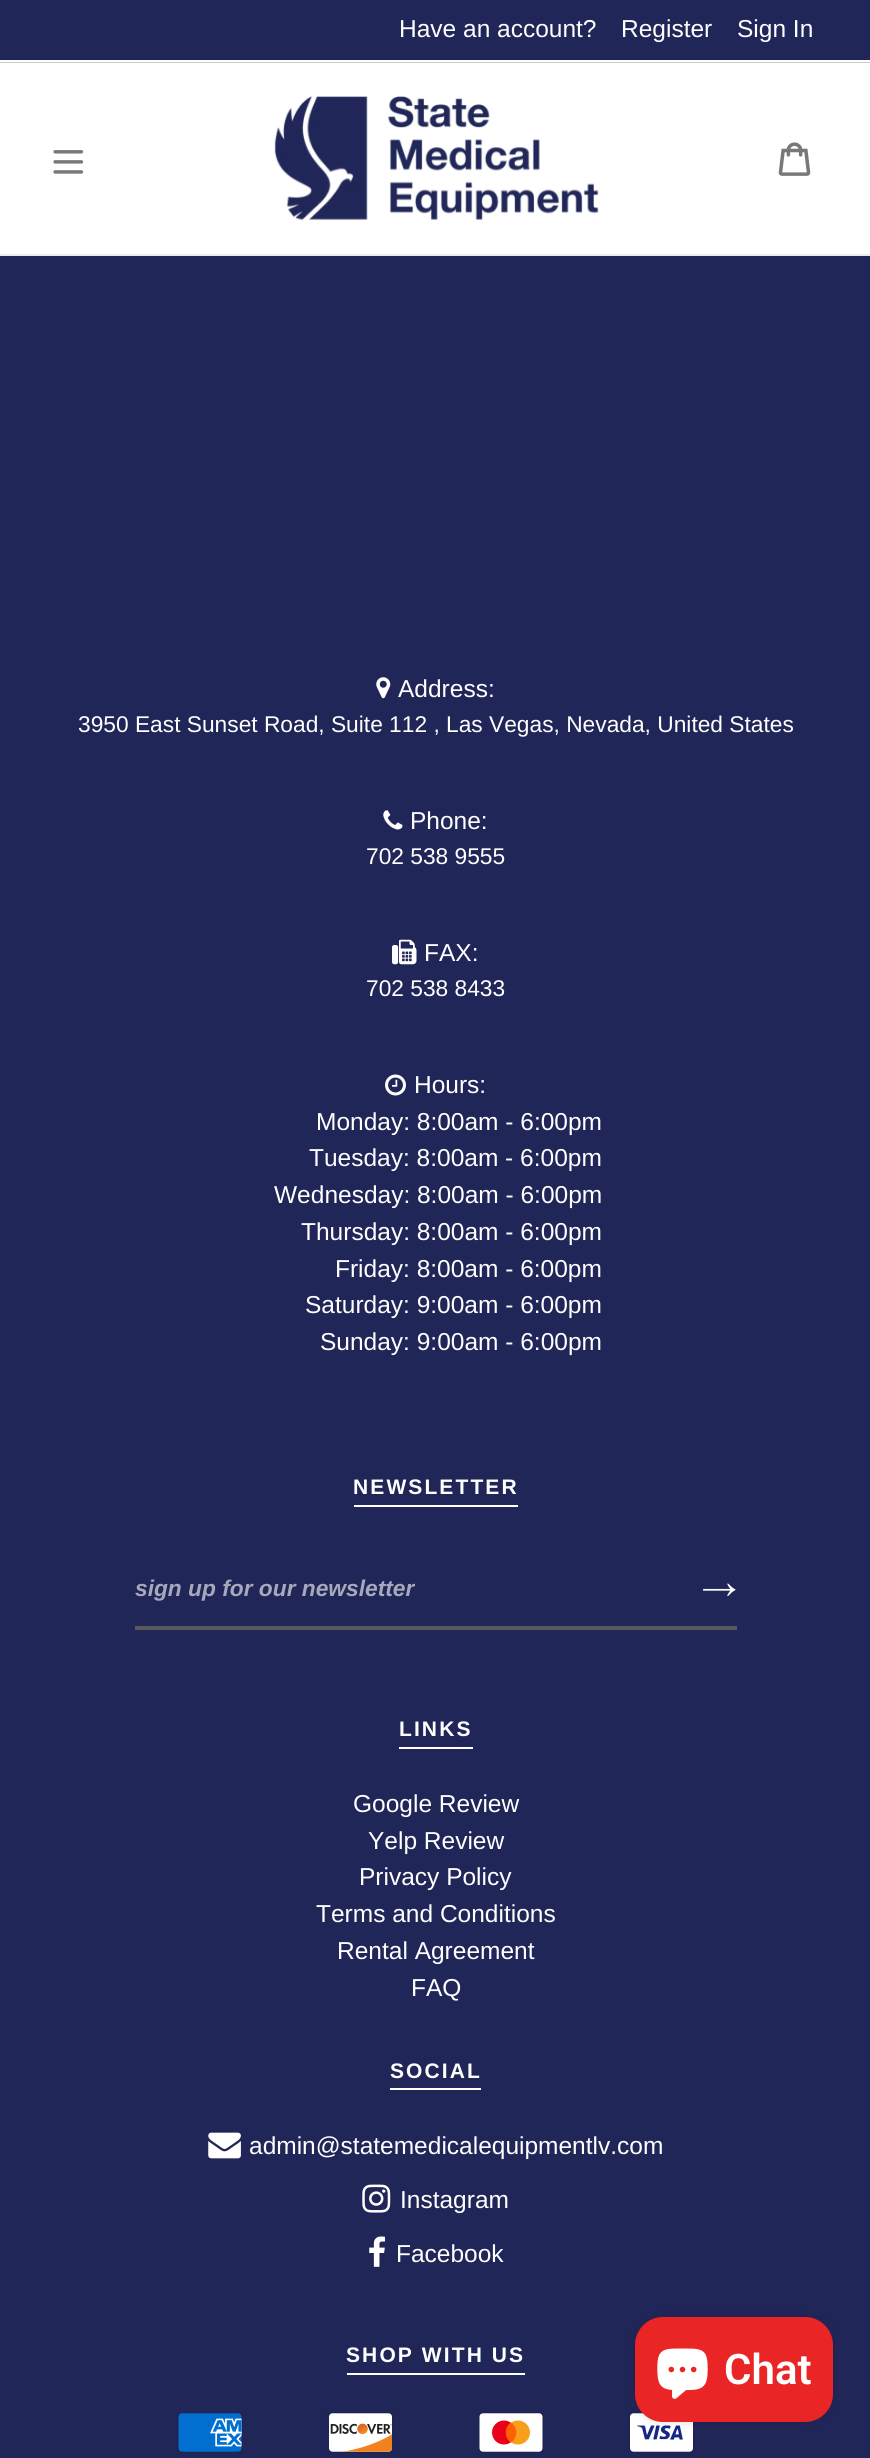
#include <cairo.h>
#include <math.h>
#include <stddef.h>

typedef struct { const char *family; double size; int italic, bold; unsigned color; } style_t;
static cairo_t *ctx;

static void ink(unsigned color) {
    cairo_set_source_rgb(ctx, (color >> 16) / 255.0, (color >> 8 & 255) / 255.0, (color & 255) / 255.0);
}

static void write(double x, double y, const char *s, const style_t *st) {
    cairo_select_font_face(ctx, st->family, st->italic ? CAIRO_FONT_SLANT_ITALIC : CAIRO_FONT_SLANT_NORMAL,
        st->bold ? CAIRO_FONT_WEIGHT_BOLD : CAIRO_FONT_WEIGHT_NORMAL);
    cairo_set_font_size(ctx, st->size);
    ink(st->color);
    cairo_move_to(ctx, x, y);
    cairo_show_text(ctx, s);
}

static void write_spaced(double x, double y, const char *s, double letter, double word) {
    cairo_move_to(ctx, x, y);
    while (*s) {
        char ch[5] = {0};
        int n = 0;
        do ch[n++] = *s++; while ((*s & 0xC0) == 0x80);
        cairo_show_text(ctx, ch);
        cairo_rel_move_to(ctx, letter + word * (*ch == ' '), 0);
    }
}

static void block(double x, double y, double w, double h, unsigned color) {
    ink(color);
    cairo_rectangle(ctx, x, y, w, h);
    cairo_fill(ctx);
}

static void round_path(double x, double y, double w, double h, double r) {
    cairo_new_sub_path(ctx);
    cairo_arc(ctx, x + w - r, y + h - r, r, 0, M_PI / 2);
    cairo_arc(ctx, x + r, y + h - r, r, M_PI / 2, M_PI);
    cairo_arc(ctx, x + r, y + r, r, M_PI, 1.5 * M_PI);
    cairo_arc(ctx, x + w - r, y + r, r, 1.5 * M_PI, 2 * M_PI);
    cairo_close_path(ctx);
}

static void blur_box(double x, double y, double w, double h, double r, double blur, double alpha) {
    cairo_push_group_with_content(ctx, CAIRO_CONTENT_ALPHA);
    cairo_set_operator(ctx, CAIRO_OPERATOR_SOURCE);
    for (int i = 15; i >= -15 && fmin(w, h) + blur * i / 3 > 0; i -= 2) {
        double e = blur * i / 6;
        cairo_set_source_rgba(ctx, 0, 0, 0, alpha * erfc((i - 1) / 8.5) / 2);
        round_path(x - e, y - e, w + 2 * e, h + 2 * e, fmax(0, fmin(r + e + blur * .6, fmin(w, h) / 2 + e)));
        cairo_fill(ctx);
    }
    cairo_pattern_t *soft = cairo_pop_group(ctx);
    cairo_mask(ctx, soft);
    cairo_pattern_destroy(soft);
}

static void paste(const char *path, double x, double y, double w, double h) {
    cairo_surface_t *image = cairo_image_surface_create_from_png(path);
    cairo_save(ctx);
    cairo_set_source_surface(ctx, image, x, y);
    cairo_rectangle(ctx, x, y, w, h);
    cairo_fill(ctx);
    cairo_restore(ctx);
    cairo_surface_destroy(image);
}

static const style_t s1 = {"Liberation Sans", 24.5, 0, 0, 0xffffff};
static const style_t s2 = {"Liberation Sans", 22.75, 0, 0, 0xffffff};
static const style_t s3 = {"Liberation Sans", 22.75, 1, 1, 0xa6a8bc};
static const style_t s4 = {"Roboto SemiBold", 42, 0, 0, 0xffffff};

int main(void) {
    cairo_surface_t *surface = cairo_image_surface_create(CAIRO_FORMAT_RGB24, 870, 2458);
    ctx = cairo_create(surface);
    cairo_font_options_t *options = cairo_font_options_create();
    cairo_font_options_set_hint_metrics(options, CAIRO_HINT_METRICS_OFF);
    cairo_font_options_set_hint_style(options, CAIRO_HINT_STYLE_NONE);
    cairo_set_font_options(ctx, options);
    cairo_set_miter_limit(ctx, 4);
    ink(0x212658);
    cairo_paint(ctx);
    block(0, 62, 870, 1, 0xcacbd7);
    block(0, 60, 870, 2, 0xffffff);
    write(399, 37, "Have an account?", &s1);
    write(621, 37, "Register", &s1);
    write(737, 37, "Sign In", &s1);
    block(0, 63, 870, 191, 0xffffff);
    block(0, 254, 870, 2, 0xebebeb);
    paste("pic1.png", 53, 150, 31, 24);
    paste("pic2.png", 274, 96, 325, 125);
    paste("pic3.png", 778, 142, 33, 34);
    paste("pic4.png", 376, 677, 15, 22);
    write(398, 697, "Address:", &s1);
    write(78, 732, "3950 East Sunset Road, Suite 112 , Las Vegas, Nevada, United States", &s2);
    paste("pic5.png", 383, 810, 20, 20);
    write(410, 829, "Phone:", &s1);
    write(366, 864, "702 538 9555", &s2);
    paste("pic6.png", 392, 939, 25, 26);
    write(424, 961, "FAX:", &s1);
    write(366, 996, "702 538 8433", &s2);
    paste("pic7.png", 385, 1074, 21, 22);
    write(414, 1093, "Hours:", &s1);
    write(316, 1130, "Monday: 8:00am - 6:00pm", &s1);
    write(309, 1166, "Tuesday: 8:00am - 6:00pm", &s1);
    write(274, 1203, "Wednesday: 8:00am - 6:00pm", &s1);
    write(301, 1240, "Thursday: 8:00am - 6:00pm", &s1);
    write(335, 1277, "Friday: 8:00am - 6:00pm", &s1);
    write(305, 1313, "Saturday: 9:00am - 6:00pm", &s1);
    write(320, 1350, "Sunday: 9:00am - 6:00pm", &s1);
    cairo_select_font_face(ctx, "Liberation Sans", CAIRO_FONT_SLANT_NORMAL, CAIRO_FONT_WEIGHT_BOLD);
    cairo_set_font_size(ctx, 21);
    write_spaced(353, 1494, "NEWSLETTER", 2.1, 0);
    block(354, 1505, 164, 2, 0xffffff);
    block(135, 1626, 602, 4, 0x5a5858);
    write(135, 1596, "sign up for our newsletter", &s3);
    paste("pic8.png", 703, 1583, 33, 13);
    cairo_select_font_face(ctx, "Liberation Sans", CAIRO_FONT_SLANT_NORMAL, CAIRO_FONT_WEIGHT_BOLD);
    cairo_set_font_size(ctx, 21);
    ink(0xffffff);
    write_spaced(399, 1736, "LINKS", 2.1, 0);
    block(399, 1747, 74, 2, 0xffffff);
    write(353, 1812, "Google Review", &s1);
    write(368, 1849, "Yelp Review", &s1);
    write(359, 1885, "Privacy Policy", &s1);
    write(316, 1922, "Terms and Conditions", &s1);
    write(337, 1959, "Rental Agreement", &s1);
    write(411, 1996, "FAQ", &s1);
    cairo_select_font_face(ctx, "Liberation Sans", CAIRO_FONT_SLANT_NORMAL, CAIRO_FONT_WEIGHT_BOLD);
    cairo_set_font_size(ctx, 21);
    write_spaced(390, 2078, "SOCIAL", 2.1, 0);
    block(390, 2088, 91, 2, 0xffffff);
    paste("pic9.png", 208, 2132, 33, 27);
    write(249, 2154, "admin@statemedicalequipmentlv.com", &s1);
    paste("pic10.png", 362, 2184, 29, 29);
    write(400, 2208, "Instagram", &s1);
    paste("pic11.png", 369, 2236, 16, 31);
    write(396, 2262, "Facebook", &s1);
    cairo_select_font_face(ctx, "Liberation Sans", CAIRO_FONT_SLANT_NORMAL, CAIRO_FONT_WEIGHT_BOLD);
    cairo_set_font_size(ctx, 21);
    write_spaced(346, 2362, "SHOP WITH US", 2.1, 0);
    block(347, 2373, 178, 2, 0xffffff);
    paste("pic12.png", 177, 2412, 66, 41);
    paste("pic13.png", 327, 2412, 67, 41);
    paste("pic14.png", 478, 2412, 66, 41);
    paste("pic15.png", 628, 2412, 67, 41);
    ink(0x000000);
    blur_box(635, 2317, 198, 105, 28, 4.5, 0.15);
    ink(0xe92525);
    round_path(635, 2317, 198, 105, 28);
    cairo_fill(ctx);
    paste("pic16.png", 657, 2348, 51, 51);
    write(724, 2384, "Chat", &s4);
    cairo_surface_write_to_png(surface, "screenshot.png");
    cairo_font_options_destroy(options);
    cairo_destroy(ctx);
    cairo_surface_destroy(surface);
    return 0;
}
